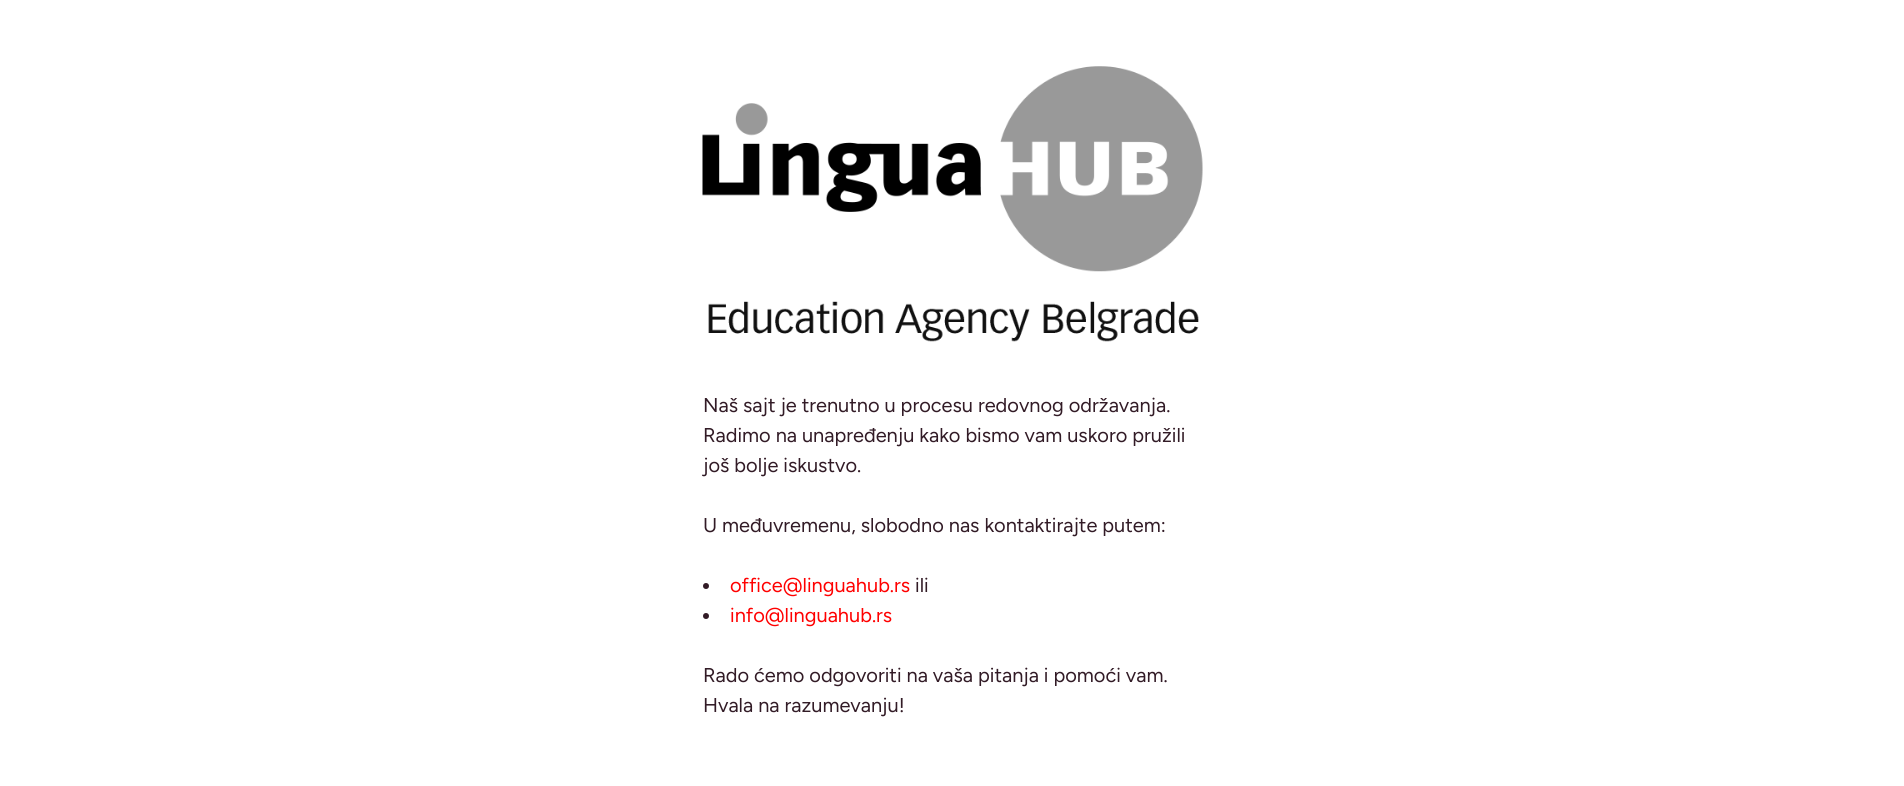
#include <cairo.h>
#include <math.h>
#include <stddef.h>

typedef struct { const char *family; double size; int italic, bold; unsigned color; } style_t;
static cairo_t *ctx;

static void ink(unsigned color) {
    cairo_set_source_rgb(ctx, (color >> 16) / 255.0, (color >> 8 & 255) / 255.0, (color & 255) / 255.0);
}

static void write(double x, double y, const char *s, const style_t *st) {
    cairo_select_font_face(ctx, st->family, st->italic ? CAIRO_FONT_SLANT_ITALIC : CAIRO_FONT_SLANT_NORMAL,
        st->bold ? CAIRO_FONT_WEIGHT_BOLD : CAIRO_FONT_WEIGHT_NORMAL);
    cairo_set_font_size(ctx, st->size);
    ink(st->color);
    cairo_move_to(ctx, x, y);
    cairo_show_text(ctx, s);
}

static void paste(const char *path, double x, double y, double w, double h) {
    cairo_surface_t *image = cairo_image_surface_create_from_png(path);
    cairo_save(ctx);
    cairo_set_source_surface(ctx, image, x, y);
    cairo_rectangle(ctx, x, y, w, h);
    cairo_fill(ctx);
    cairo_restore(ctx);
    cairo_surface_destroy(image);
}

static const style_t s1 = {"Figtree Light", 20, 0, 0, 0x321b26};
static const style_t s2 = {"Figtree Light", 20, 0, 0, 0xff0000};

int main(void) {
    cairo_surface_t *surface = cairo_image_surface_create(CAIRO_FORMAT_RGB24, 1904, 786);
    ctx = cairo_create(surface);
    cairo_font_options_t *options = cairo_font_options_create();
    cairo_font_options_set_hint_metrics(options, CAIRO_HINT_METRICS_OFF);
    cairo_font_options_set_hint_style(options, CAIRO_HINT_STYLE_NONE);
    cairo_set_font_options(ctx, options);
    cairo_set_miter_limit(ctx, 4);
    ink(0xffffff);
    cairo_paint(ctx);
    paste("pic1.png", 702, 66, 501, 276);
    write(703, 412, "Naš sajt je trenutno u procesu redovnog održavanja.", &s1);
    write(703, 442, "Radimo na unapređenju kako bismo vam uskoro pružili", &s1);
    write(703, 472, "još bolje iskustvo.", &s1);
    write(703, 532, "U međuvremenu, slobodno nas kontaktirajte putem:", &s1);
    cairo_new_path(ctx);
    cairo_arc(ctx, 706, 586, 3, 0, 2 * M_PI);
    cairo_fill(ctx);
    write(730, 592, "office@linguahub.rs", &s2);
    write(915, 592, "ili", &s1);
    cairo_new_path(ctx);
    cairo_arc(ctx, 706, 616, 3, 0, 2 * M_PI);
    cairo_fill(ctx);
    write(730, 622, "info@linguahub.rs", &s2);
    write(703, 682, "Rado ćemo odgovoriti na vaša pitanja i pomoći vam.", &s1);
    write(703, 712, "Hvala na razumevanju!", &s1);
    cairo_surface_write_to_png(surface, "screenshot.png");
    cairo_font_options_destroy(options);
    cairo_destroy(ctx);
    cairo_surface_destroy(surface);
    return 0;
}
